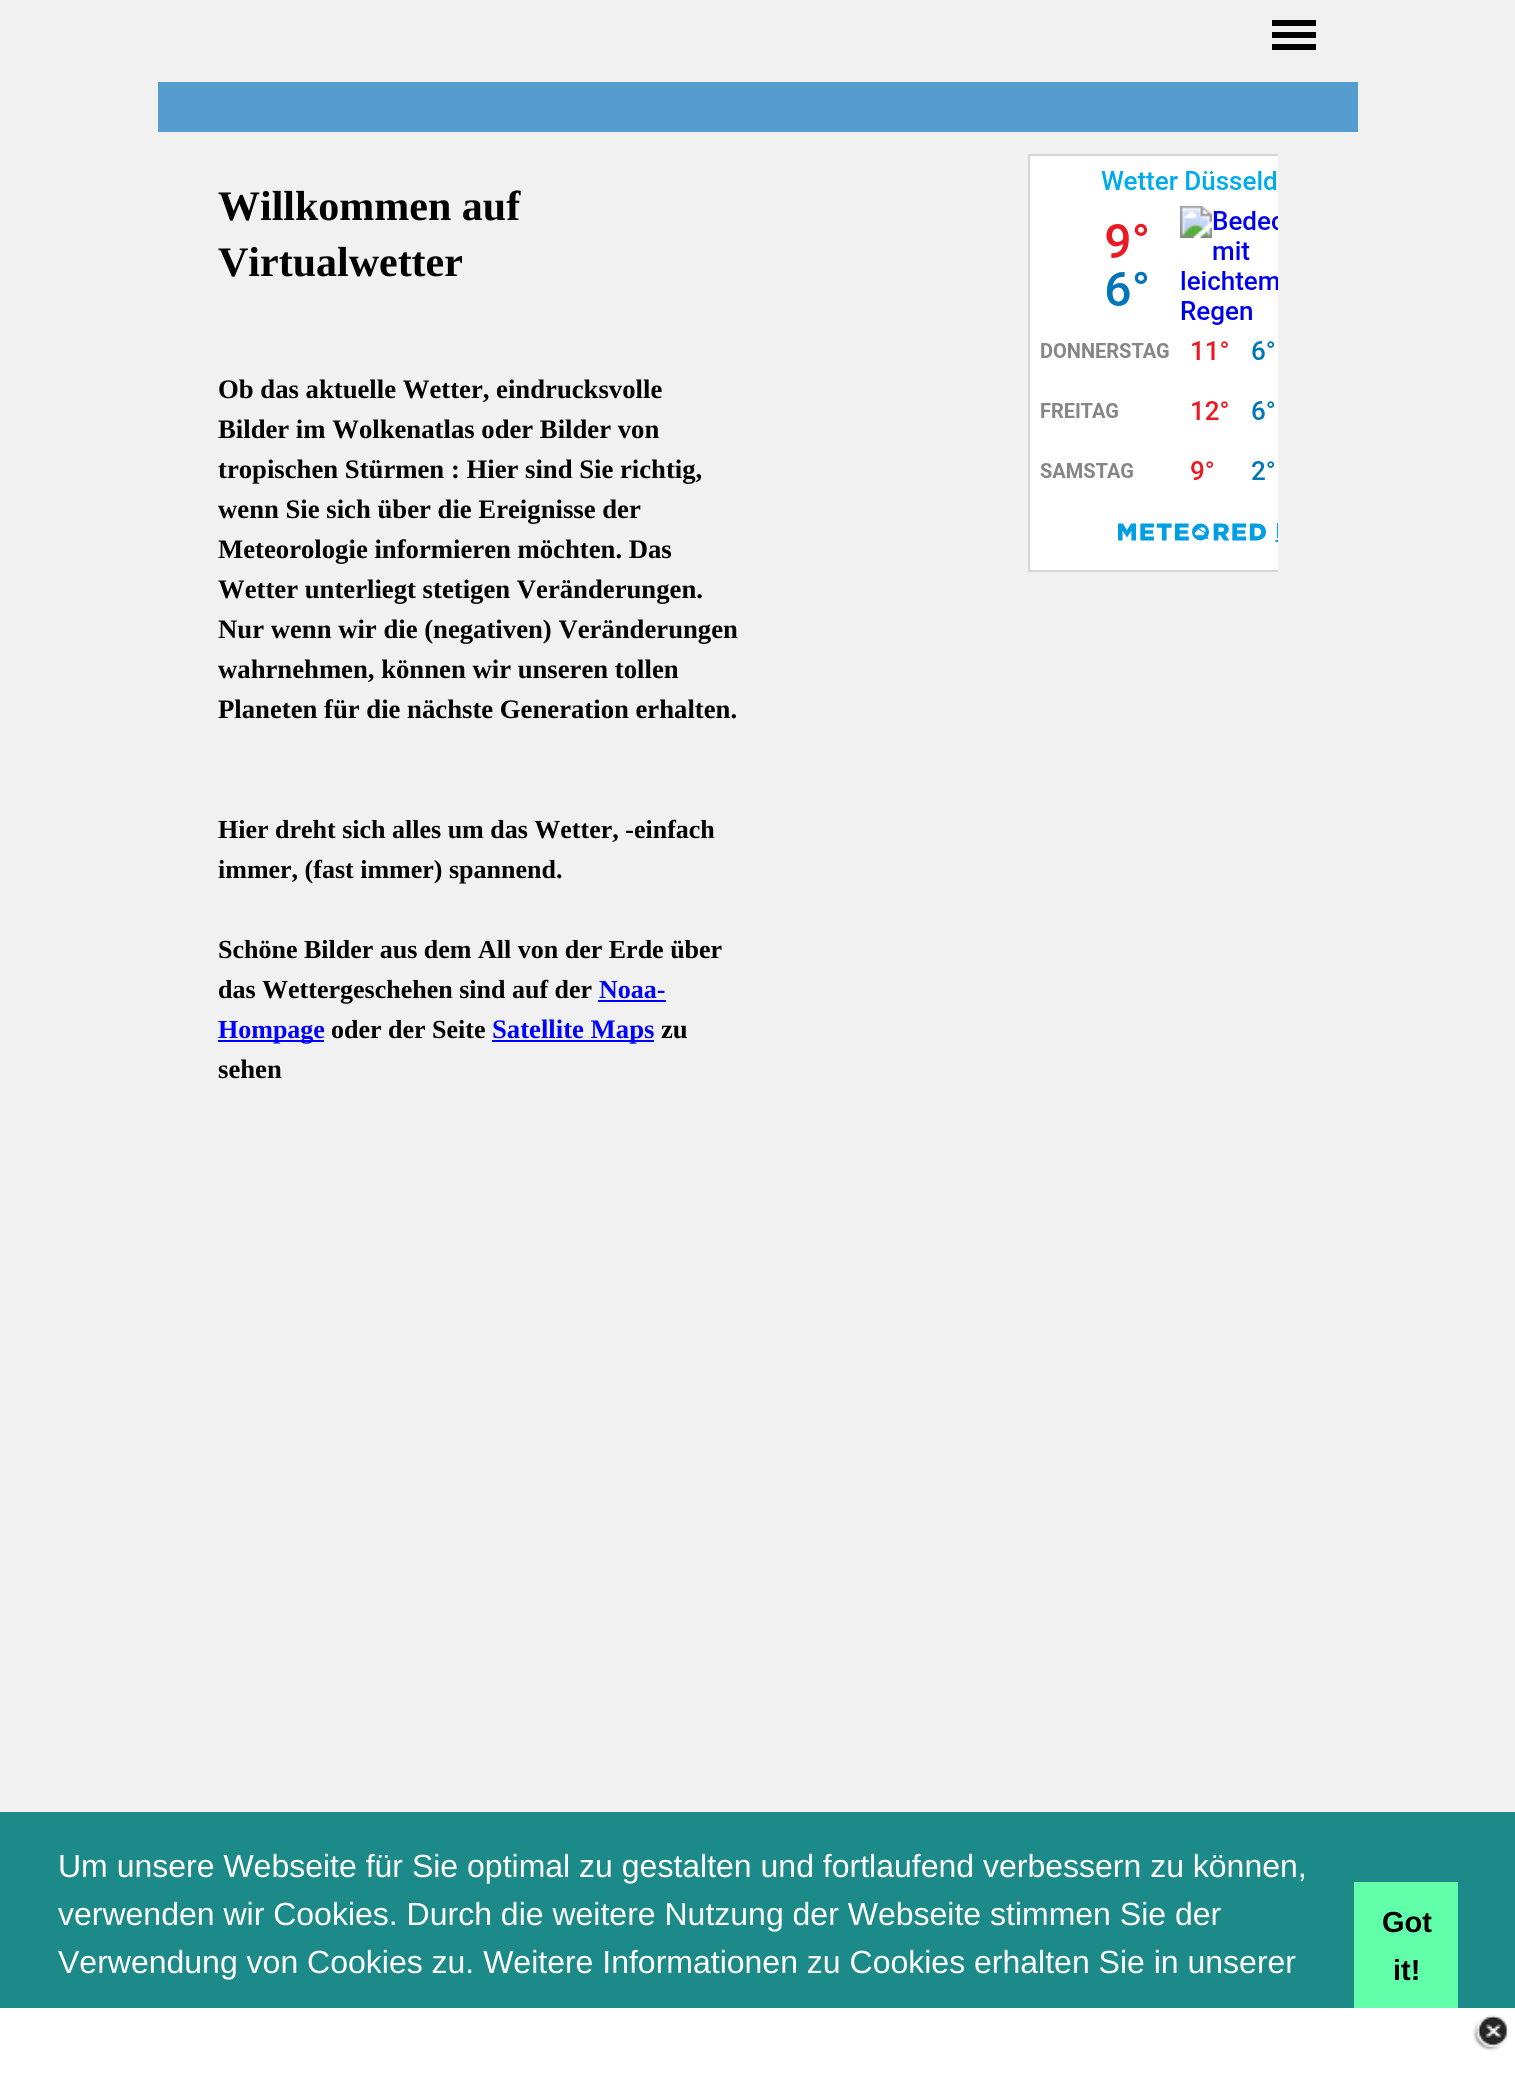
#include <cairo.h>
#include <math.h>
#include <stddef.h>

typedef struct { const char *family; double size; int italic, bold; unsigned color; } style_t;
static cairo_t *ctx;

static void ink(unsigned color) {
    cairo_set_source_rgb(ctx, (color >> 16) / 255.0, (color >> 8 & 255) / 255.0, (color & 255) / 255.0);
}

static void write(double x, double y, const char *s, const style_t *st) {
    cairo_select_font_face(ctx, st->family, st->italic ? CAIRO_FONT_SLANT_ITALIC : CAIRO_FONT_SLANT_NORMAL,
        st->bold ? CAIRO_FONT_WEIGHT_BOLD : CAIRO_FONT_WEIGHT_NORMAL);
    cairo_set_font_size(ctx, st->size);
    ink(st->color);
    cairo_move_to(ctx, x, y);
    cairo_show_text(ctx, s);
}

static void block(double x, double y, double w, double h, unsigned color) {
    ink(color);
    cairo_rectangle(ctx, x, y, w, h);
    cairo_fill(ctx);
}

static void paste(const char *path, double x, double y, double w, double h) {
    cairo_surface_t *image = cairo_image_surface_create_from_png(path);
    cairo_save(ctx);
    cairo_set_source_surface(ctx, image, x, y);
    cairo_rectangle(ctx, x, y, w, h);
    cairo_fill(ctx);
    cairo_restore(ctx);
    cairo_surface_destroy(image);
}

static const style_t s1 = {"Liberation Serif", 42, 0, 1, 0x000000};
static const style_t s2 = {"Liberation Serif", 26.7, 0, 1, 0x000000};
static const style_t s3 = {"Liberation Serif", 26, 0, 1, 0x000000};
static const style_t s4 = {"Liberation Serif", 26, 0, 1, 0x0000ff};
static const style_t s5 = {"Liberation Serif", 26.7, 0, 1, 0x0000ff};
static const style_t s6 = {"Liberation Sans", 32, 0, 0, 0xffffff};
static const style_t s7 = {"Liberation Sans", 29, 0, 1, 0x000000};

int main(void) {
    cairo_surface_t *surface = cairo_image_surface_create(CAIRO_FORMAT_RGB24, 1515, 2079);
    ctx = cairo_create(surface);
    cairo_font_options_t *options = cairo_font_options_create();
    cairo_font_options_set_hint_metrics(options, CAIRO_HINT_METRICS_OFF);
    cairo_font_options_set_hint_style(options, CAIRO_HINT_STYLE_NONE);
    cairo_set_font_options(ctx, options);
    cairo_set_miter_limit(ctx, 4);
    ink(0xf1f1f1);
    cairo_paint(ctx);
    block(1272, 20, 44, 6, 0x000000);
    block(1272, 32, 44, 6, 0x000000);
    block(1272, 44, 44, 6, 0x000000);
    block(158, 82, 1200, 50, 0x559dcf);
    write(218, 220, "Willkommen auf", &s1);
    write(218, 276, "Virtualwetter", &s1);
    write(218, 398, "Ob das aktuelle Wetter, eindrucksvolle", &s2);
    write(218, 438, "Bilder im Wolkenatlas oder Bilder von", &s2);
    write(218, 478, "tropischen Stürmen : Hier sind Sie richtig,", &s2);
    write(218, 518, "wenn Sie sich über die Ereignisse der", &s2);
    write(218, 558, "Meteorologie informieren möchten. Das", &s2);
    write(218, 598, "Wetter unterliegt stetigen Veränderungen.", &s2);
    write(218, 638, "Nur wenn wir die (negativen) Veränderungen", &s2);
    write(218, 678, "wahrnehmen, können wir unseren tollen", &s2);
    write(218, 718, "Planeten für die nächste Generation erhalten.", &s2);
    write(218, 838, "Hier dreht sich alles um das Wetter, -einfach", &s3);
    write(218, 878, "immer, (fast immer) spannend.", &s3);
    write(218, 958, "Schöne Bilder aus dem All von der Erde über", &s3);
    write(218, 998, "das Wettergeschehen sind auf der", &s3);
    write(599, 998, "Noaa-", &s4);
    block(598, 1000, 68, 2, 0x0000ff);
    block(218, 1040, 106, 2, 0x0000ff);
    write(218, 1038, "Hompage", &s4);
    write(331, 1038, "oder der Seite", &s3);
    block(492, 1040, 162, 2, 0x0000ff);
    write(492, 1038, "Satellite Maps", &s5);
    write(661, 1038, "zu", &s2);
    write(218, 1078, "sehen", &s2);
    block(1030, 156, 248, 414, 0xffffff);
    cairo_save(ctx);
    cairo_rectangle(ctx, 1028, 154, 250, 700);
    cairo_clip(ctx);
    cairo_rectangle(ctx, 1029, 155, 354, 416);
    ink(0xd6d6d6);
    cairo_stroke(ctx);
    cairo_restore(ctx);
    paste("pic1.png", 1040, 171, 238, 371);
    block(0, 1812, 1515, 196, 0x1d8a8a);
    write(58, 1877, "Um unsere Webseite für Sie optimal zu gestalten und fortlaufend verbessern zu können,", &s6);
    write(58, 1925, "verwenden wir Cookies. Durch die weitere Nutzung der Webseite stimmen Sie der", &s6);
    write(58, 1973, "Verwendung von Cookies zu. Weitere Informationen zu Cookies erhalten Sie in unserer", &s6);
    block(1354, 1882, 104, 126, 0x62ffaa);
    write(1382, 1932, "Got", &s7);
    write(1393, 1980, "it!", &s7);
    block(0, 2008, 1515, 71, 0xffffff);
    paste("pic2.png", 1473, 2015, 36, 36);
    cairo_surface_write_to_png(surface, "screenshot.png");
    cairo_font_options_destroy(options);
    cairo_destroy(ctx);
    cairo_surface_destroy(surface);
    return 0;
}
